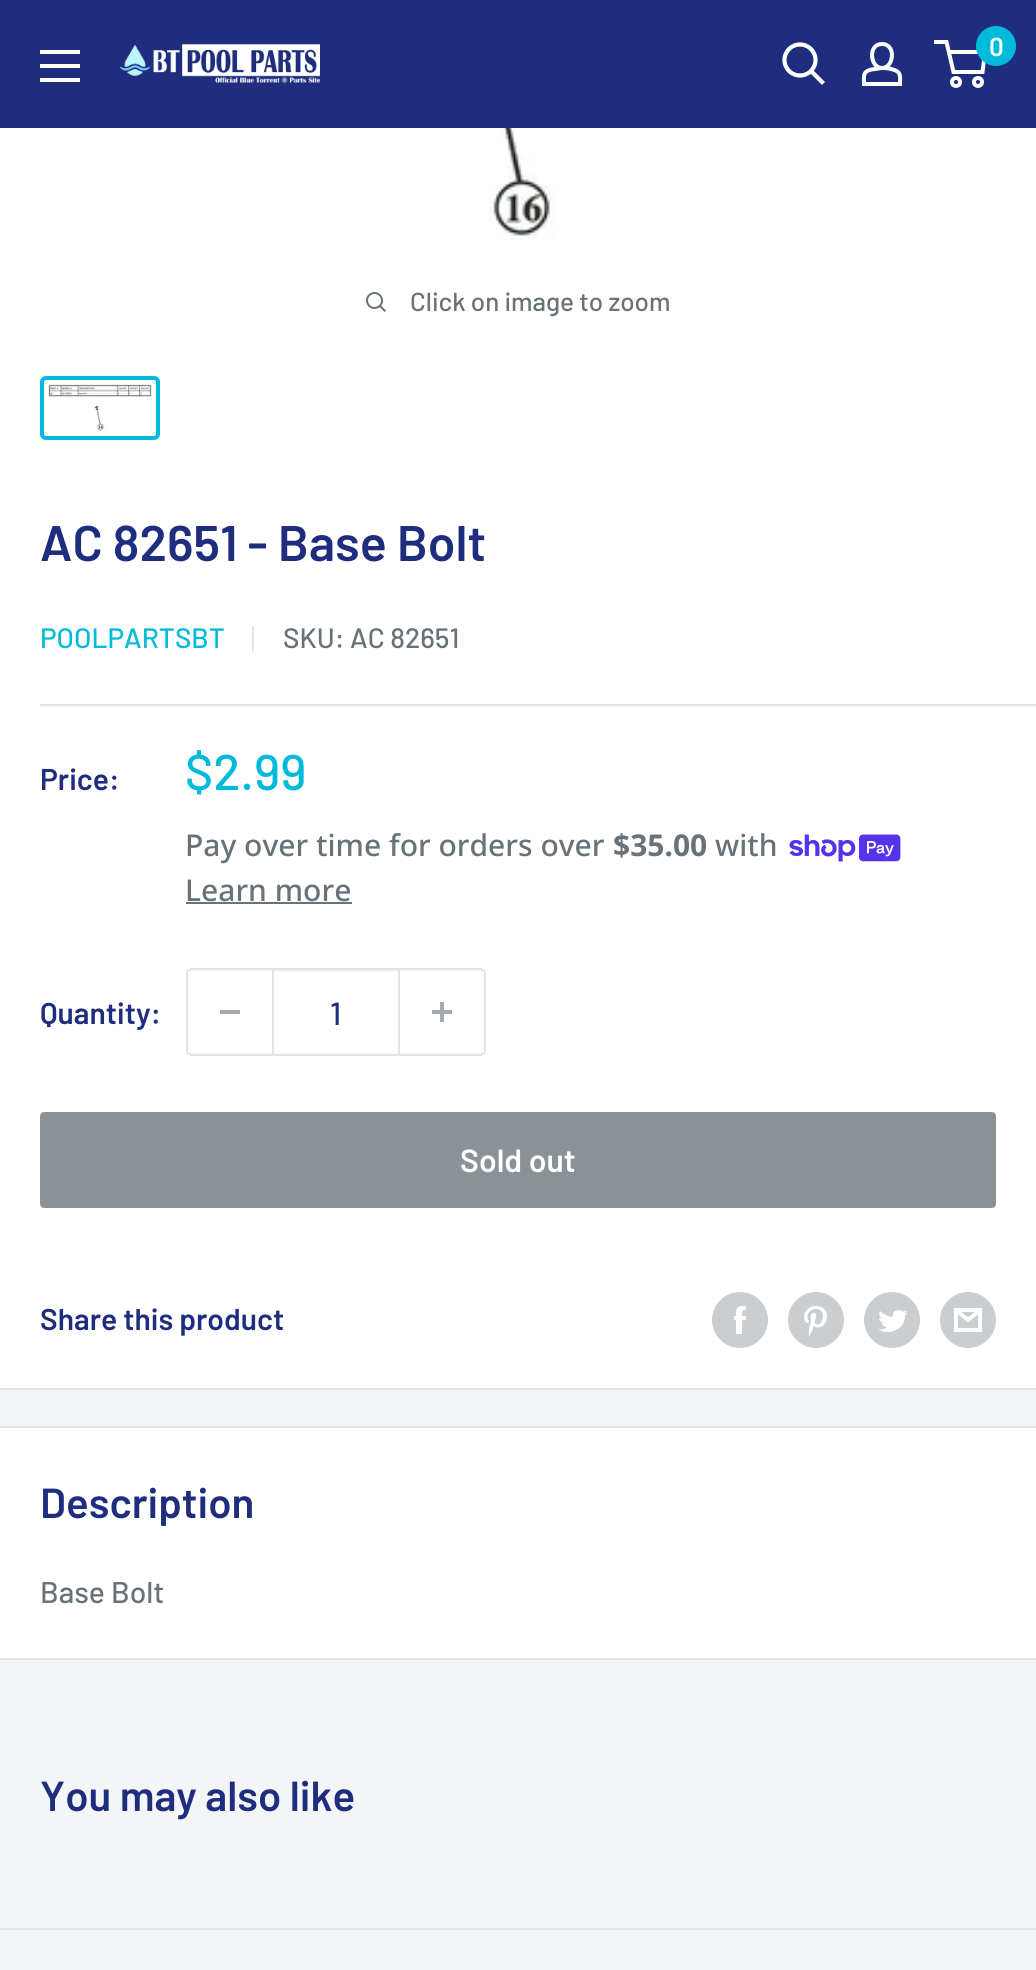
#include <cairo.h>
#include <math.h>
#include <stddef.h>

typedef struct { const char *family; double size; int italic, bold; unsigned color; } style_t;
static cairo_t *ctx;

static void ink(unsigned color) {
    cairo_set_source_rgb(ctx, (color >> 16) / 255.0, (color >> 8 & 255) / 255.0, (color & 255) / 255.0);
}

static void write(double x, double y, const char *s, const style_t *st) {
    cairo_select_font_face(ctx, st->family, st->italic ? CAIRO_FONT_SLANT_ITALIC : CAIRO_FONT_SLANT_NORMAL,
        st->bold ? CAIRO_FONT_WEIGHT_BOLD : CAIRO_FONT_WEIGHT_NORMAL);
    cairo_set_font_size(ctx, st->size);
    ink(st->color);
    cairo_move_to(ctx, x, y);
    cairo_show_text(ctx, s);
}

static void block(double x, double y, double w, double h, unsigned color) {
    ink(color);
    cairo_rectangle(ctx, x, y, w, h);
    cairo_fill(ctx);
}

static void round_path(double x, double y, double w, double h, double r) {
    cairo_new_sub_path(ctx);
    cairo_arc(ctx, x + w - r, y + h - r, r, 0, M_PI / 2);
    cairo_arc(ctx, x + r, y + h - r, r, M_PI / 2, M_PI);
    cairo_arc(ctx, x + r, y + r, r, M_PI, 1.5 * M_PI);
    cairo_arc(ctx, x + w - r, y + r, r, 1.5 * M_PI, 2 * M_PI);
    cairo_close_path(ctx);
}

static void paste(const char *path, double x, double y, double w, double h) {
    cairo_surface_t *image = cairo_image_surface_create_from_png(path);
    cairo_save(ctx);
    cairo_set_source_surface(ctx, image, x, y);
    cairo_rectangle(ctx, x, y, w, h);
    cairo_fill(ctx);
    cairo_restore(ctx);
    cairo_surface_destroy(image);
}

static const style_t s1 = {"Barlow SemiBold", 26, 0, 0, 0xffffff};
static const style_t s2 = {"Barlow Medium", 26, 0, 0, 0x677279};
static const style_t s3 = {"Barlow SemiBold", 50, 0, 0, 0x1e2d7d};
static const style_t s4 = {"Barlow Medium", 28, 0, 0, 0x00badb};
static const style_t s5 = {"Barlow Medium", 28, 0, 0, 0x677279};
static const style_t s6 = {"Barlow SemiBold", 30, 0, 0, 0x1e2d7d};
static const style_t s7 = {"Barlow Medium", 50, 0, 0, 0x00badb};
static const style_t s8 = {"Noto Sans Medium", 30, 0, 0, 0x677279};
static const style_t s9 = {"Noto Sans", 30, 0, 1, 0x677279};
static const style_t s10 = {"Barlow Medium", 32, 0, 0, 0x1e2d7d};
static const style_t s11 = {"Barlow SemiBold", 32, 0, 0, 0xffffff};
static const style_t s12 = {"Barlow SemiBold", 42, 0, 0, 0x1e2d7d};
static const style_t s13 = {"Barlow Medium", 30, 0, 0, 0x677279};

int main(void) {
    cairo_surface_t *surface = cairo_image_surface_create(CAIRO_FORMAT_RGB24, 1036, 1970);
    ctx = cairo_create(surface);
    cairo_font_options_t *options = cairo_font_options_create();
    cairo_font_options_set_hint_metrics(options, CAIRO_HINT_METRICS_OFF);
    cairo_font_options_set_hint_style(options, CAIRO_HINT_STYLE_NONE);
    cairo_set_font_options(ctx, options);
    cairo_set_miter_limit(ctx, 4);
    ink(0xf3f5f6);
    cairo_paint(ctx);
    block(0, 0, 1036, 128, 0x1e2d7d);
    ink(0xffffff);
    cairo_set_fill_rule(ctx, CAIRO_FILL_RULE_EVEN_ODD);
    cairo_new_path(ctx);
    cairo_move_to(ctx, 40, 78);
    cairo_line_to(ctx, 80, 78);
    cairo_line_to(ctx, 80, 82);
    cairo_line_to(ctx, 40, 82);
    cairo_close_path(ctx);
    cairo_move_to(ctx, 40, 50);
    cairo_line_to(ctx, 80, 50);
    cairo_line_to(ctx, 80, 54);
    cairo_line_to(ctx, 40, 54);
    cairo_close_path(ctx);
    cairo_move_to(ctx, 40, 64);
    cairo_line_to(ctx, 80, 64);
    cairo_line_to(ctx, 80, 68);
    cairo_line_to(ctx, 40, 68);
    cairo_close_path(ctx);
    cairo_fill(ctx);
    paste("pic1.png", 120, 44, 200, 40);
    cairo_new_path(ctx);
    cairo_move_to(ctx, 822, 82);
    cairo_line_to(ctx, 811.5, 71.5);
    cairo_set_line_width(ctx, 4.2);
    cairo_set_line_cap(ctx, CAIRO_LINE_CAP_SQUARE);
    cairo_stroke(ctx);
    cairo_arc(ctx, 800, 60, 15.5, 0, 2 * M_PI);
    cairo_set_line_cap(ctx, CAIRO_LINE_CAP_BUTT);
    cairo_stroke(ctx);
    cairo_new_path(ctx);
    cairo_move_to(ctx, 882, 68);
    cairo_curve_to(ctx, 886, 68, 889.5, 68.5, 893, 69.5);
    cairo_curve_to(ctx, 901.5, 72, 900, 76.5, 900, 84);
    cairo_line_to(ctx, 864, 84);
    cairo_curve_to(ctx, 864, 76, 862.5, 71.5, 871.5, 69.5);
    cairo_close_path(ctx);
    cairo_move_to(ctx, 882, 68);
    cairo_curve_to(ctx, 870, 68, 867.5, 44, 882, 44);
    cairo_curve_to(ctx, 896.5, 44, 894, 68, 882, 68);
    cairo_close_path(ctx);
    cairo_set_line_width(ctx, 4);
    cairo_stroke(ctx);
    cairo_arc(ctx, 956, 82, 4, 0, 2 * M_PI);
    cairo_stroke(ctx);
    cairo_arc(ctx, 978, 82, 4, 0, 2 * M_PI);
    cairo_stroke(ctx);
    cairo_new_path(ctx);
    cairo_move_to(ctx, 948.5, 52);
    cairo_line_to(ctx, 985, 52);
    cairo_line_to(ctx, 982.5, 72);
    cairo_line_to(ctx, 953.5, 72);
    cairo_line_to(ctx, 946.5, 42);
    cairo_line_to(ctx, 934, 42);
    cairo_stroke(ctx);
    ink(0x00badb);
    cairo_arc(ctx, 996, 46, 20, 0, 2 * M_PI);
    cairo_fill(ctx);
    write(989, 56, "0", &s1);
    block(0, 128, 1036, 1260, 0xffffff);
    paste("pic2.png", 469, 128, 87, 112);
    paste("pic3.png", 366, 292, 20, 20);
    write(410, 311, "Click on image to zoom", &s2);
    round_path(42, 378, 116, 60, 4);
    ink(0x00badb);
    cairo_stroke(ctx);
    paste("pic4.png", 48, 384, 104, 47);
    block(0, 1388, 1036, 2, 0xe1e3e4);
    write(40, 561, "AC 82651 - Base Bolt", &s3);
    write(40, 648, "POOLPARTSBT", &s4);
    block(252, 626, 2, 26, 0xe1e3e4);
    write(283, 648, "SKU: AC 82651", &s5);
    block(40, 704, 996, 2, 0xe1e3e4);
    write(40, 790, "Price:", &s6);
    write(185, 790, "$2.99", &s7);
    write(185, 856, "Pay over time for orders over", &s8);
    write(613, 856, "$35.00", &s9);
    write(715, 856, "with", &s8);
    paste("pic5.png", 789, 834, 112, 28);
    write(185, 901, "Learn more", &s8);
    block(186, 902, 166, 2, 0x677279);
    write(40, 1024, "Quantity:", &s6);
    round_path(187, 969, 298, 86, 5);
    ink(0xe1e3e4);
    cairo_set_line_width(ctx, 2);
    cairo_stroke(ctx);
    block(220, 1010, 20, 4, 0xa4aaaf);
    block(274, 970, 124, 2, 0xf3f4f4);
    block(398, 970, 2, 84, 0xe1e3e4);
    block(272, 970, 2, 84, 0xe1e3e4);
    write(330, 1025, "1", &s10);
    paste("pic6.png", 432, 1002, 20, 20);
    ink(0x8a9297);
    round_path(41, 1113, 954, 94, 3);
    cairo_fill_preserve(ctx);
    cairo_stroke(ctx);
    write(460, 1172, "Sold out", &s11);
    write(40, 1330, "Share this product", &s6);
    paste("pic7.png", 712, 1292, 56, 56);
    paste("pic8.png", 788, 1292, 56, 56);
    paste("pic9.png", 864, 1292, 56, 56);
    paste("pic10.png", 940, 1292, 56, 56);
    block(0, 1428, 1036, 230, 0xffffff);
    block(0, 1426, 1036, 2, 0xe1e3e4);
    block(0, 1658, 1036, 2, 0xe1e3e4);
    write(40, 1518, "Description", &s12);
    write(40, 1603, "Base Bolt", &s13);
    write(40, 1811, "You may also like", &s12);
    block(0, 1928, 1036, 2, 0xe1e3e4);
    cairo_surface_write_to_png(surface, "screenshot.png");
    cairo_font_options_destroy(options);
    cairo_destroy(ctx);
    cairo_surface_destroy(surface);
    return 0;
}
